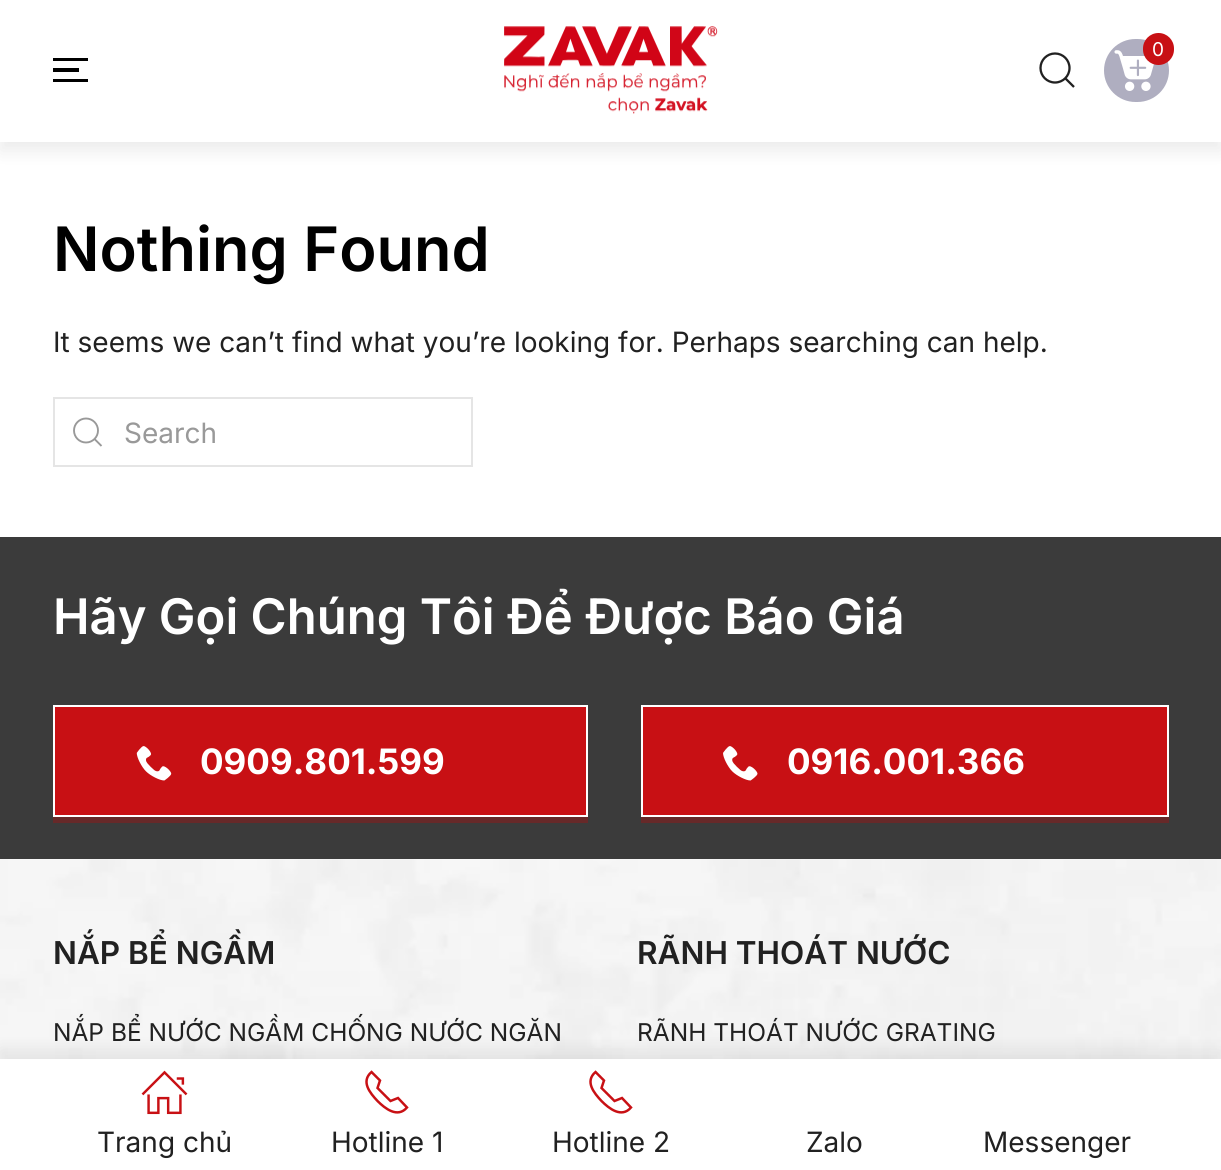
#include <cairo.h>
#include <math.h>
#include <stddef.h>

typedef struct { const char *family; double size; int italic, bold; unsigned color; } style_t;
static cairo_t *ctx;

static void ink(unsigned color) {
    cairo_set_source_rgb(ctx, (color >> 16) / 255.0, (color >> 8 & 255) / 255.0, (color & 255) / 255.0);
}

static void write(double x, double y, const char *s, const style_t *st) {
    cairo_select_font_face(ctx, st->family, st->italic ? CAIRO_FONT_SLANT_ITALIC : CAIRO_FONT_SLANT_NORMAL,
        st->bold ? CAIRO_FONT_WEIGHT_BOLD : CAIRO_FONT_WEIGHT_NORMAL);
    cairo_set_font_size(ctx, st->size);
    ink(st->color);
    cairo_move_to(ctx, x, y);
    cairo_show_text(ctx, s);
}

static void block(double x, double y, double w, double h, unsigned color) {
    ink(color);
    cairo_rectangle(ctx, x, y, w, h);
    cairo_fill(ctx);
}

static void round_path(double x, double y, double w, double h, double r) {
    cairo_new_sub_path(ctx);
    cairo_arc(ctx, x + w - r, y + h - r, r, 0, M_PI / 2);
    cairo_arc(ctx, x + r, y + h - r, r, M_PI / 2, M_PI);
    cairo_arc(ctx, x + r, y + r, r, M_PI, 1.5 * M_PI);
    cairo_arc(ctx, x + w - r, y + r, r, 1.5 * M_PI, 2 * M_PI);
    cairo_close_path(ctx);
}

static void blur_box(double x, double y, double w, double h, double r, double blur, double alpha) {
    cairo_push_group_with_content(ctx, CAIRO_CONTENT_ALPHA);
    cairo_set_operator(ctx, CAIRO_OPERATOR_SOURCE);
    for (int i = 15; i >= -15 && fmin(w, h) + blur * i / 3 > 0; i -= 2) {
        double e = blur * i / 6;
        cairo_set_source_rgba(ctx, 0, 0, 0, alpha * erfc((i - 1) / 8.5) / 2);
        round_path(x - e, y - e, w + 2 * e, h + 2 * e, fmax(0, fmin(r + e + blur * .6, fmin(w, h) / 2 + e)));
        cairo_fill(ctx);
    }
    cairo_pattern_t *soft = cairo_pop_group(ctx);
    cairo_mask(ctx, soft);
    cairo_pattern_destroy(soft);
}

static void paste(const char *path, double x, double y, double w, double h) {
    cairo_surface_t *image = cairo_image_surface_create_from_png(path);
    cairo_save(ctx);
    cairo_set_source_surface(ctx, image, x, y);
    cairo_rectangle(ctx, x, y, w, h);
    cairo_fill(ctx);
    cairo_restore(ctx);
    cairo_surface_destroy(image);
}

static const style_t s1 = {"Inter", 19, 0, 0, 0xffffff};
static const style_t s2 = {"Inter SemiBold", 61.25, 0, 0, 0x000000};
static const style_t s3 = {"Inter", 28, 0, 0, 0x212121};
static const style_t s4 = {"Inter", 28, 0, 0, 0x999999};
static const style_t s5 = {"Inter SemiBold", 49, 0, 0, 0xffffff};
static const style_t s6 = {"Inter", 35, 0, 1, 0xffffff};
static const style_t s7 = {"Inter SemiBold", 31.5, 0, 0, 0x212121};
static const style_t s8 = {"Inter", 24.5, 0, 0, 0x212121};

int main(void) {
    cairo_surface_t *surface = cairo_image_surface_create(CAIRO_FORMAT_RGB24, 1221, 1170);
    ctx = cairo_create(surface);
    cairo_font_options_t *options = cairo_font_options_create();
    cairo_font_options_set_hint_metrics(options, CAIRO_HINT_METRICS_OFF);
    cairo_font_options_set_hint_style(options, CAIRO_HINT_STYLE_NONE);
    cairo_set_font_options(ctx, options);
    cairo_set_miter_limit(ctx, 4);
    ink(0xffffff);
    cairo_paint(ctx);
    ink(0x000000);
    blur_box(0, 9, 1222, 142, 0, 9, 0.08);
    block(0, 0, 1221, 142, 0xffffff);
    paste("pic1.png", 504, 26, 214, 88);
    ink(0xafaec0);
    round_path(1104, 39, 65, 63, 31.5);
    cairo_fill(ctx);
    paste("pic2.png", 1114, 50, 40, 41);
    ink(0xc81014);
    round_path(1143, 33, 31, 32, 15.5);
    cairo_fill(ctx);
    write(1152, 56, "0", &s1);
    cairo_new_path(ctx);
    cairo_arc(ctx, 1055, 68, 14.5, 0, 2 * M_PI);
    ink(0x212121);
    cairo_set_line_width(ctx, 2.3);
    cairo_stroke(ctx);
    cairo_new_path(ctx);
    cairo_move_to(ctx, 1065.5, 78.5);
    cairo_line_to(ctx, 1074, 87);
    cairo_close_path(ctx);
    cairo_stroke(ctx);
    block(53, 58, 35, 3, 0x000000);
    block(53, 68, 26, 4, 0x000000);
    block(53, 79, 35, 3, 0x000000);
    write(53, 271, "Nothing Found", &s2);
    write(53, 352, "It seems we can’t find what you’re looking for. Perhaps searching can help.", &s3);
    cairo_rectangle(ctx, 54, 398, 418, 68);
    ink(0xe5e5e5);
    cairo_set_line_width(ctx, 2);
    cairo_stroke(ctx);
    cairo_arc(ctx, 86, 430.5, 12, 0, 2 * M_PI);
    ink(0x999999);
    cairo_set_line_width(ctx, 1.9);
    cairo_stroke(ctx);
    cairo_new_path(ctx);
    cairo_move_to(ctx, 94.5, 439);
    cairo_line_to(ctx, 101.5, 446);
    cairo_close_path(ctx);
    cairo_stroke(ctx);
    write(124, 443, "Search", &s4);
    block(0, 537, 1221, 322, 0x3b3b3b);
    write(53, 634, "Hãy Gọi Chúng Tôi Để Được Báo Giá", &s5);
    block(53, 817, 535, 6, 0x672929);
    ink(0xc81014);
    cairo_rectangle(ctx, 54, 706, 533, 110);
    cairo_fill_preserve(ctx);
    ink(0xffffff);
    cairo_set_line_width(ctx, 2);
    cairo_stroke(ctx);
    paste("pic3.png", 136, 746, 36, 35);
    write(200, 774, "0909.801.599", &s6);
    block(641, 817, 528, 6, 0x672929);
    ink(0xc81014);
    cairo_rectangle(ctx, 642, 706, 526, 110);
    cairo_fill_preserve(ctx);
    ink(0xffffff);
    cairo_stroke(ctx);
    paste("pic4.png", 723, 746, 35, 35);
    write(787, 774, "0916.001.366", &s6);
    paste("pic5.png", 0, 859, 1221, 200);
    write(53, 964, "NẮP BỂ NGẦM", &s7);
    write(53, 1041, "NẮP BỂ NƯỚC NGẦM CHỐNG NƯỚC NGĂN", &s8);
    write(637, 964, "RÃNH THOÁT NƯỚC", &s7);
    write(637, 1041, "RÃNH THOÁT NƯỚC GRATING", &s8);
    ink(0x000000);
    blur_box(0, 1050, 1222, 112, 0, 9, 0.08);
    block(0, 1059, 1221, 111, 0xffffff);
    paste("pic6.png", 141, 1070, 47, 45);
    write(97, 1152, "Trang chủ", &s3);
    cairo_new_path(ctx);
    cairo_move_to(ctx, 377.5, 1101);
    cairo_curve_to(ctx, 385, 1108.5, 397.5, 1118.5, 407, 1107.5);
    cairo_line_to(ctx, 398, 1098);
    cairo_line_to(ctx, 390.5, 1101);
    cairo_line_to(ctx, 377.5, 1088);
    cairo_line_to(ctx, 380, 1080.5);
    cairo_line_to(ctx, 371.5, 1072);
    cairo_curve_to(ctx, 360.5, 1081.5, 370, 1093, 377.5, 1101);
    ink(0xc81014);
    cairo_set_line_width(ctx, 2.5);
    cairo_stroke(ctx);
    write(331, 1152, "Hotline 1", &s3);
    cairo_new_path(ctx);
    cairo_move_to(ctx, 601.5, 1101);
    cairo_curve_to(ctx, 609, 1108.5, 621.5, 1118.5, 631, 1107.5);
    cairo_line_to(ctx, 622, 1098);
    cairo_line_to(ctx, 614.5, 1101);
    cairo_line_to(ctx, 601.5, 1088);
    cairo_line_to(ctx, 604, 1080.5);
    cairo_line_to(ctx, 595.5, 1072);
    cairo_curve_to(ctx, 584.5, 1081.5, 594, 1093, 601.5, 1101);
    ink(0xc81014);
    cairo_stroke(ctx);
    write(552, 1152, "Hotline 2", &s3);
    write(806, 1152, "Zalo", &s3);
    write(983, 1152, "Messenger", &s3);
    cairo_surface_write_to_png(surface, "screenshot.png");
    cairo_font_options_destroy(options);
    cairo_destroy(ctx);
    cairo_surface_destroy(surface);
    return 0;
}
